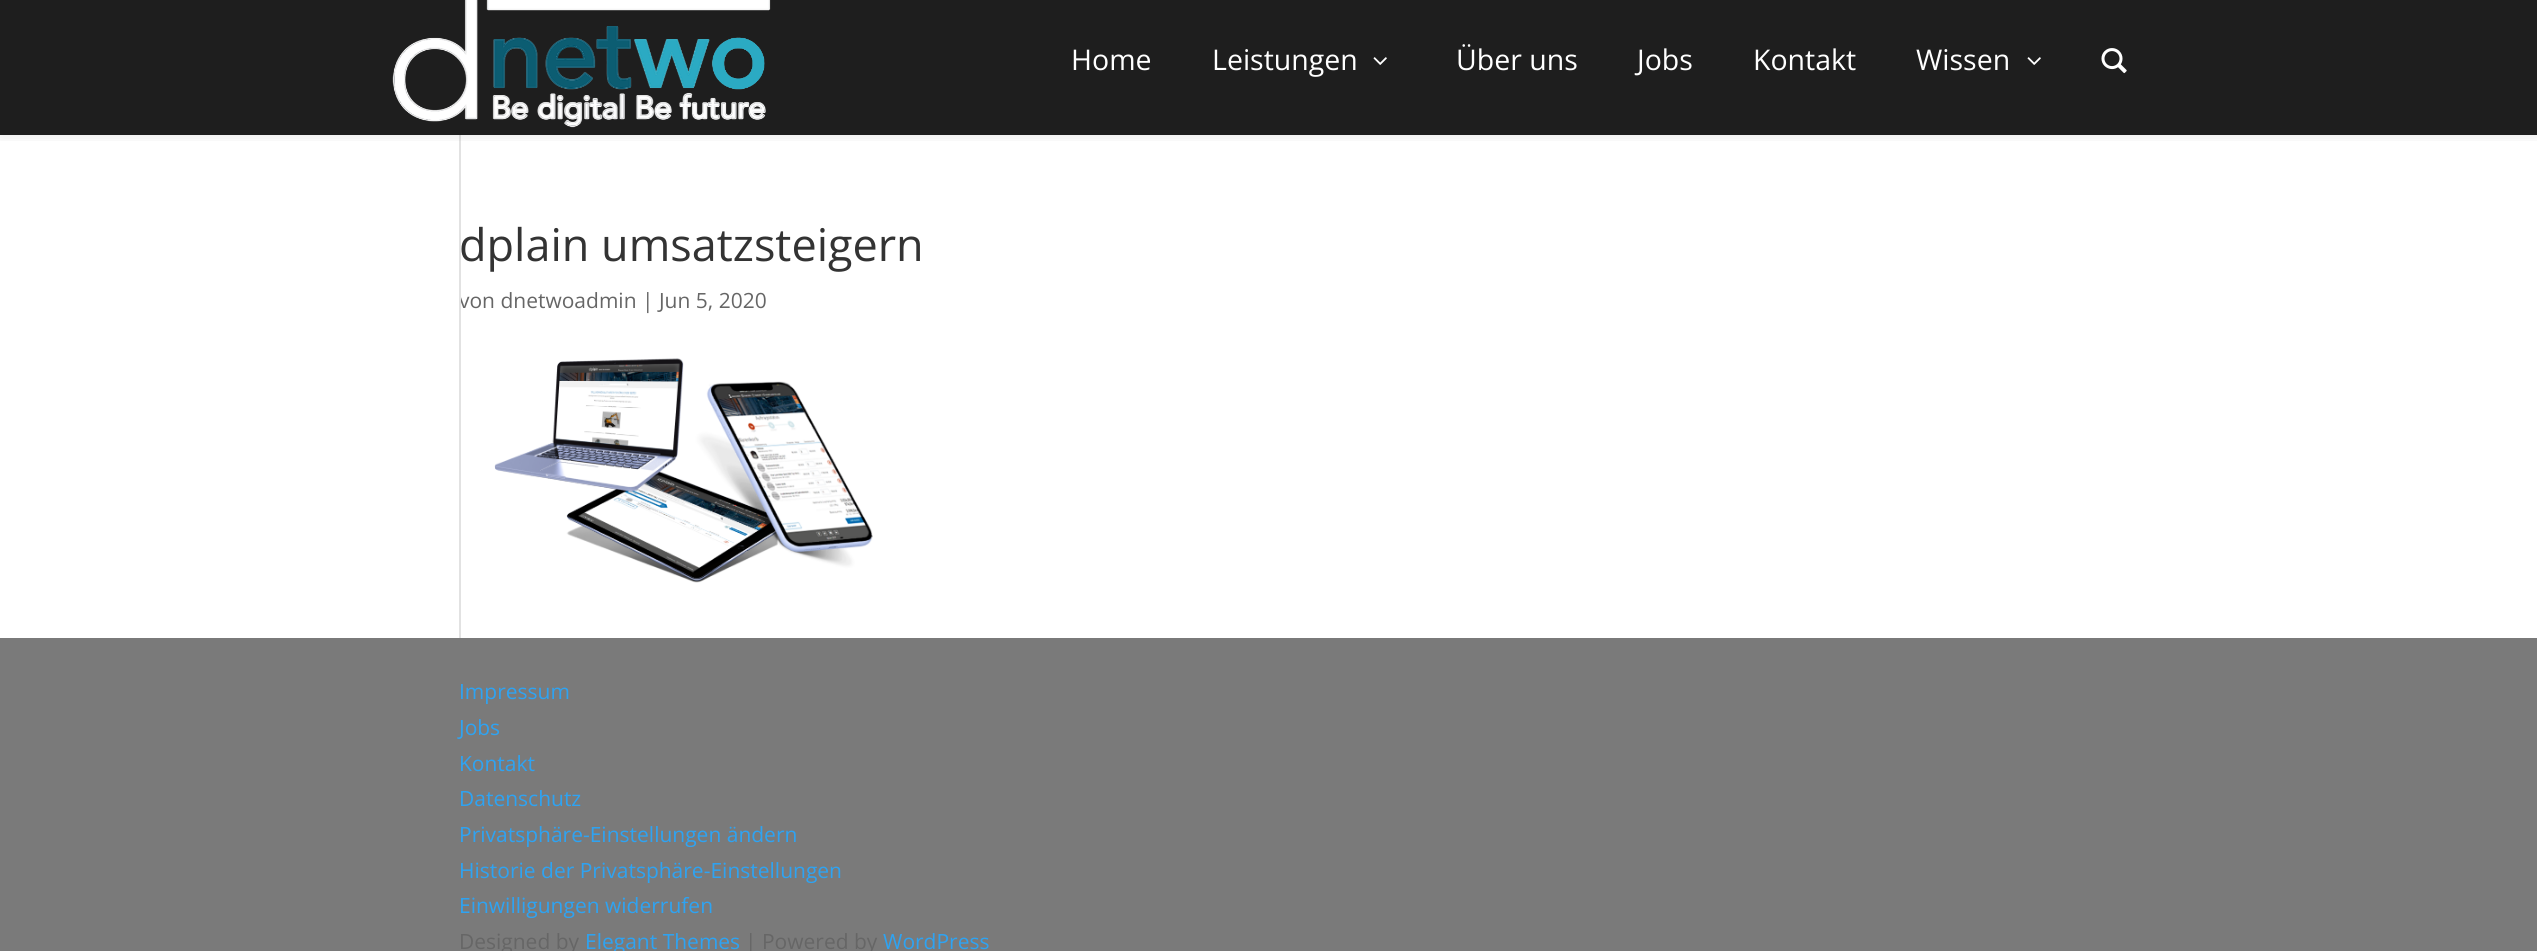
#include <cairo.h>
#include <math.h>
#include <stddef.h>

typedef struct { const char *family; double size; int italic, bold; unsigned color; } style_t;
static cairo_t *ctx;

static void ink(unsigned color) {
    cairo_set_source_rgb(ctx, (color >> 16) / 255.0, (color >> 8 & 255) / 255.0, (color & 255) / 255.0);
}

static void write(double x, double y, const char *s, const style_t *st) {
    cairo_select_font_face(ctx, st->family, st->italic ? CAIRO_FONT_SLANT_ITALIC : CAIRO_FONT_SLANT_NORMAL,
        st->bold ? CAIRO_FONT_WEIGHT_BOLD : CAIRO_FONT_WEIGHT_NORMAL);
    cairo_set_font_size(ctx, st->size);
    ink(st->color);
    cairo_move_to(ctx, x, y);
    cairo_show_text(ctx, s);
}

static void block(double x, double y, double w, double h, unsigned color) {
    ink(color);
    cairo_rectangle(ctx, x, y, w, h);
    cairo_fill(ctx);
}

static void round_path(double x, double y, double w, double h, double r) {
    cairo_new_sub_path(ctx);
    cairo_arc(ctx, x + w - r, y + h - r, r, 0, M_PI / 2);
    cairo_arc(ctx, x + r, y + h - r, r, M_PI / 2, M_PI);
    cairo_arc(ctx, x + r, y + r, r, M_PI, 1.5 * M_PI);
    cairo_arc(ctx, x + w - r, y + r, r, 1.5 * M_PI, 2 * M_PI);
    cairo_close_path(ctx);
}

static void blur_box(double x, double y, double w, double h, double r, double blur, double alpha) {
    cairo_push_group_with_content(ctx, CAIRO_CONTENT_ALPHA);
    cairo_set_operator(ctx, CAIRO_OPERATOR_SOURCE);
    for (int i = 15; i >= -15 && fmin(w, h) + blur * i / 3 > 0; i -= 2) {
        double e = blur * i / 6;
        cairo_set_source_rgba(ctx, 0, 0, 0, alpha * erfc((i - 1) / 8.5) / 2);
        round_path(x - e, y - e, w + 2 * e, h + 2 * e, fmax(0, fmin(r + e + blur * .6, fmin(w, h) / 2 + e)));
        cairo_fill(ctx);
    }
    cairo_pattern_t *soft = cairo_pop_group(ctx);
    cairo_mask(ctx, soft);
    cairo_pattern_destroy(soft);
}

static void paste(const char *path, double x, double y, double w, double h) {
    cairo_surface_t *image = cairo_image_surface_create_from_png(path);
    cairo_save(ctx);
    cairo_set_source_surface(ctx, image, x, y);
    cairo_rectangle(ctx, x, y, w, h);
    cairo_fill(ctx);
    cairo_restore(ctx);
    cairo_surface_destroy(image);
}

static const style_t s1 = {"Open Sans", 21, 0, 0, 0x666666};
static const style_t s2 = {"Open Sans", 28.5, 0, 0, 0xffffff};
static const style_t s3 = {"Open Sans", 45, 0, 0, 0x333333};
static const style_t s4 = {"Open Sans", 21, 0, 0, 0x2ea3f2};

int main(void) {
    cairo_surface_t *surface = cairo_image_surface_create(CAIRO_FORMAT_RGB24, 2537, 951);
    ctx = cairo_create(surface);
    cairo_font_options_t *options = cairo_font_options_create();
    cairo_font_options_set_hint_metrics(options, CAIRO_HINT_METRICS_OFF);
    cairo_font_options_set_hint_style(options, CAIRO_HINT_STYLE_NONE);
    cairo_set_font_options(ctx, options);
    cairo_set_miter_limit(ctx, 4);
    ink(0x7a7a7a);
    cairo_paint(ctx);
    block(0, 0, 2537, 135, 0x1e1e1e);
    block(0, 135, 2537, 503, 0xffffff);
    write(459, 308, "von dnetwoadmin | Jun 5, 2020", &s1);
    block(459, 135, 2, 503, 0xe2e2e2);
    cairo_save(ctx);
    cairo_rectangle(ctx, 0, 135, 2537, 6);
    cairo_clip(ctx);
    ink(0x000000);
    blur_box(0, -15, 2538, 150, 0, 7.5, 0.1);
    cairo_restore(ctx);
    paste("pic1.png", 392, 0, 379, 128);
    write(1071, 70, "Home", &s2);
    write(1212, 70, "Leistungen", &s2);
    paste("pic2.png", 1373, 57, 14, 8);
    write(1456, 70, "Über uns", &s2);
    write(1637, 70, "Jobs", &s2);
    write(1753, 70, "Kontakt", &s2);
    write(1916, 70, "Wissen", &s2);
    paste("pic2.png", 2027, 57, 14, 8);
    paste("pic3.png", 2101, 48, 26, 26);
    write(459, 261, "dplain umsatzsteigern", &s3);
    paste("pic4.png", 494, 358, 379, 225);
    write(459, 699, "Impressum", &s4);
    write(459, 735, "Jobs", &s4);
    write(459, 771, "Kontakt", &s4);
    write(459, 806, "Datenschutz", &s4);
    write(459, 842, "Privatsphäre-Einstellungen ändern", &s4);
    write(459, 878, "Historie der Privatsphäre-Einstellungen", &s4);
    write(459, 913, "Einwilligungen widerrufen", &s4);
    write(459, 949, "Designed by", &s1);
    write(585, 949, "Elegant Themes", &s4);
    write(745, 949, "| Powered by", &s1);
    write(883, 949, "WordPress", &s4);
    cairo_surface_write_to_png(surface, "screenshot.png");
    cairo_font_options_destroy(options);
    cairo_destroy(ctx);
    cairo_surface_destroy(surface);
    return 0;
}
